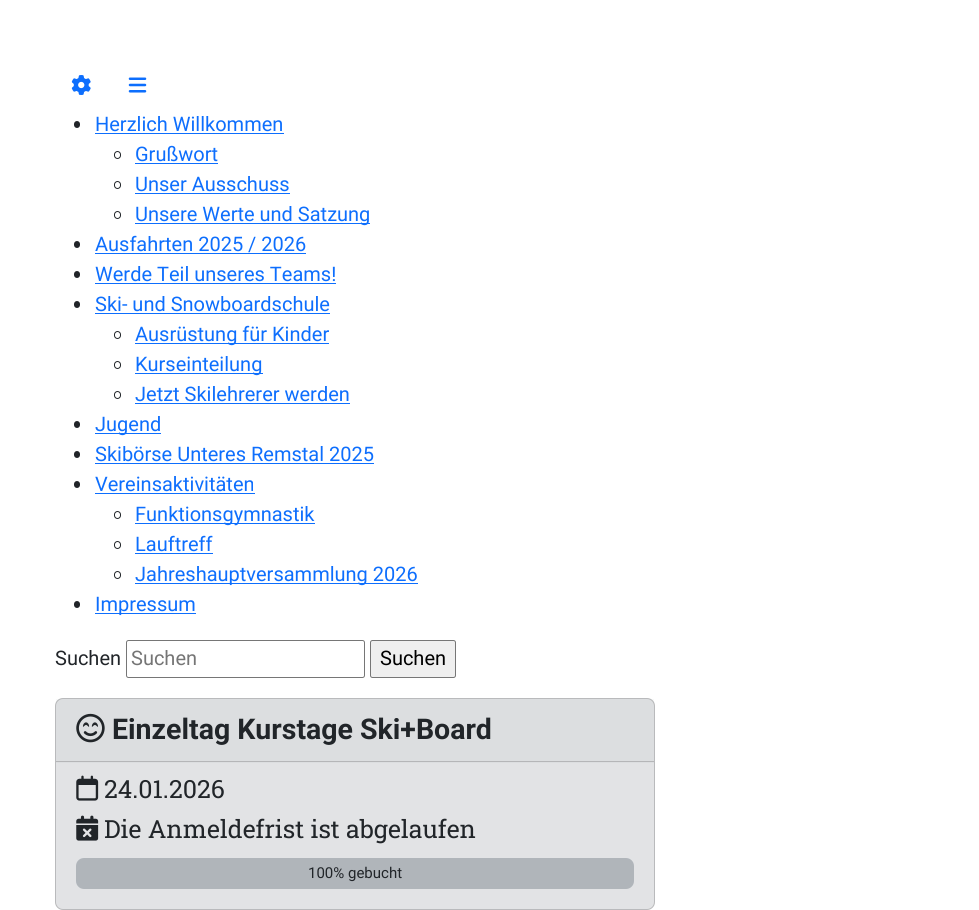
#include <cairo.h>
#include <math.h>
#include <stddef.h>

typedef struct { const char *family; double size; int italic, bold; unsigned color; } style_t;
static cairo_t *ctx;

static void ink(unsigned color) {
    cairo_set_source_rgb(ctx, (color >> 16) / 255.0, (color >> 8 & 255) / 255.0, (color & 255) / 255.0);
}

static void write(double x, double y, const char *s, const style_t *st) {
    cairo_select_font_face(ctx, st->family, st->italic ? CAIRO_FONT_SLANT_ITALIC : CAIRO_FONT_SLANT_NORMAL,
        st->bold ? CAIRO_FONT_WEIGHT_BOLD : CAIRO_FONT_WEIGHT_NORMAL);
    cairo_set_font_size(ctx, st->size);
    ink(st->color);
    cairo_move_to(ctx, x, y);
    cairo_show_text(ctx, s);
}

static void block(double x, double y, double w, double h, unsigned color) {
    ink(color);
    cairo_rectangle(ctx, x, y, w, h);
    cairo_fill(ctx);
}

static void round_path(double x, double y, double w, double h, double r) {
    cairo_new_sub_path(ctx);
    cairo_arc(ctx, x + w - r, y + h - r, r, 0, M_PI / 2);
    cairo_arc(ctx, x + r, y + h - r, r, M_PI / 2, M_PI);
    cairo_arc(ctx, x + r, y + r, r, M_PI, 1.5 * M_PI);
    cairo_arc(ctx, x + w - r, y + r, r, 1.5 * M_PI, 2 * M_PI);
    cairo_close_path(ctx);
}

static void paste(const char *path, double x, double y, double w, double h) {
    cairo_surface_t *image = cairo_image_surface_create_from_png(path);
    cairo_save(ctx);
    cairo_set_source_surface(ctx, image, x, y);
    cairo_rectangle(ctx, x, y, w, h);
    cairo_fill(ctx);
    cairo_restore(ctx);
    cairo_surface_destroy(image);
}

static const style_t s1 = {"Roboto", 20, 0, 0, 0x0d6efd};
static const style_t s2 = {"Roboto", 20, 0, 0, 0x212529};
static const style_t s3 = {"Roboto", 20, 0, 0, 0x757575};
static const style_t s4 = {"Roboto", 20, 0, 0, 0x000000};
static const style_t s5 = {"Roboto", 28.5, 0, 1, 0x212529};
static const style_t s6 = {"Roboto Slab", 25, 0, 0, 0x212529};
static const style_t s7 = {"Roboto", 15, 0, 0, 0x212529};

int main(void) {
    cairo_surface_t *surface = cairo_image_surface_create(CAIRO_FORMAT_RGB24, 979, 910);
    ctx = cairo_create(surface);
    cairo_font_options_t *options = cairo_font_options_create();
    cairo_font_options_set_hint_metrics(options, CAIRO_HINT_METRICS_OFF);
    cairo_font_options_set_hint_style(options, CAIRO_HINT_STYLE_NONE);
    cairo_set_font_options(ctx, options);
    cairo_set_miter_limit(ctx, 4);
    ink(0xffffff);
    cairo_paint(ctx);
    paste("pic1.png", 71, 75, 20, 20);
    paste("pic2.png", 128, 77, 19, 16);
    ink(0x212529);
    round_path(74, 121, 6, 7, 3);
    cairo_fill(ctx);
    write(95, 131, "Herzlich Willkommen", &s1);
    block(95, 133, 189, 1, 0x0d6efd);
    round_path(114.5, 151.5, 6, 7, 3);
    ink(0x212529);
    cairo_set_line_width(ctx, 1);
    cairo_stroke(ctx);
    write(135, 161, "Grußwort", &s1);
    block(135, 163, 83, 1, 0x0d6efd);
    round_path(114.5, 181.5, 6, 7, 3);
    ink(0x212529);
    cairo_stroke(ctx);
    write(135, 191, "Unser Ausschuss", &s1);
    block(135, 193, 155, 1, 0x0d6efd);
    round_path(114.5, 211.5, 6, 7, 3);
    ink(0x212529);
    cairo_stroke(ctx);
    block(135, 223, 235, 1, 0x0d6efd);
    write(135, 221, "Unsere Werte und Satzung", &s1);
    ink(0x212529);
    round_path(74, 241, 6, 7, 3);
    cairo_fill(ctx);
    write(95, 251, "Ausfahrten 2025 / 2026", &s1);
    block(95, 253, 211, 1, 0x0d6efd);
    ink(0x212529);
    round_path(74, 271, 6, 7, 3);
    cairo_fill(ctx);
    write(95, 281, "Werde Teil unseres Teams!", &s1);
    block(95, 283, 241, 1, 0x0d6efd);
    ink(0x212529);
    round_path(74, 301, 6, 7, 3);
    cairo_fill(ctx);
    write(95, 311, "Ski- und Snowboardschule", &s1);
    block(95, 313, 235, 1, 0x0d6efd);
    round_path(114.5, 331.5, 6, 7, 3);
    ink(0x212529);
    cairo_stroke(ctx);
    block(135, 343, 194, 1, 0x0d6efd);
    write(135, 341, "Ausrüstung für Kinder", &s1);
    round_path(114.5, 361.5, 6, 7, 3);
    ink(0x212529);
    cairo_stroke(ctx);
    block(135, 373, 128, 1, 0x0d6efd);
    write(135, 371, "Kurseinteilung", &s1);
    round_path(114.5, 391.5, 6, 7, 3);
    ink(0x212529);
    cairo_stroke(ctx);
    write(135, 401, "Jetzt Skilehrerer werden", &s1);
    block(135, 403, 215, 1, 0x0d6efd);
    ink(0x212529);
    round_path(74, 421, 6, 7, 3);
    cairo_fill(ctx);
    block(95, 433, 66, 1, 0x0d6efd);
    write(95, 431, "Jugend", &s1);
    ink(0x212529);
    round_path(74, 451, 6, 7, 3);
    cairo_fill(ctx);
    write(95, 461, "Skibörse Unteres Remstal 2025", &s1);
    block(95, 463, 279, 1, 0x0d6efd);
    ink(0x212529);
    round_path(74, 481, 6, 7, 3);
    cairo_fill(ctx);
    write(95, 491, "Vereinsaktivitäten", &s1);
    block(95, 493, 160, 1, 0x0d6efd);
    round_path(114.5, 511.5, 6, 7, 3);
    ink(0x212529);
    cairo_stroke(ctx);
    block(135, 523, 180, 1, 0x0d6efd);
    write(135, 521, "Funktionsgymnastik", &s1);
    round_path(114.5, 541.5, 6, 7, 3);
    ink(0x212529);
    cairo_stroke(ctx);
    write(135, 551, "Lauftreff", &s1);
    block(135, 553, 78, 1, 0x0d6efd);
    round_path(114.5, 571.5, 6, 7, 3);
    ink(0x212529);
    cairo_stroke(ctx);
    block(135, 583, 283, 1, 0x0d6efd);
    write(135, 581, "Jahreshauptversammlung 2026", &s1);
    ink(0x212529);
    round_path(74, 601, 6, 7, 3);
    cairo_fill(ctx);
    block(95, 613, 101, 1, 0x0d6efd);
    write(95, 611, "Impressum", &s1);
    write(55, 665, "Suchen", &s2);
    round_path(126.5, 640.5, 238, 37, 2);
    ink(0x767676);
    cairo_stroke(ctx);
    write(131, 665, "Suchen", &s3);
    ink(0xefefef);
    round_path(370.5, 640.5, 85, 37, 2);
    cairo_fill_preserve(ctx);
    ink(0x767676);
    cairo_stroke(ctx);
    write(380, 665, "Suchen", &s4);
    ink(0xe2e3e5);
    round_path(55, 698, 600, 212, 8);
    cairo_fill(ctx);
    round_path(55.5, 698.5, 599, 211, 7.5);
    cairo_set_source_rgba(ctx, 0, 0, 0, 0.18);
    cairo_stroke(ctx);
    cairo_set_source_rgba(ctx, 0.129, 0.145, 0.161, 0.03);
    cairo_rectangle(ctx, 56, 699, 598, 64);
    cairo_fill(ctx);
    block(56, 761, 598, 1, 0xb5b6b8);
    paste("pic3.png", 76, 713, 29, 30);
    write(112, 739, "Einzeltag Kurstage Ski+Board", &s5);
    paste("pic4.png", 76, 775, 23, 26);
    write(104, 798, "24.01.2026", &s6);
    paste("pic5.png", 76, 815, 23, 26);
    write(104, 838, "Die Anmeldefrist ist abgelaufen", &s6);
    ink(0xe9ecef);
    round_path(76, 858, 558, 31, 8);
    cairo_fill(ctx);
    cairo_set_source_rgba(ctx, 0.424, 0.459, 0.49, 0.5);
    round_path(76, 858, 558, 31, 8);
    cairo_fill(ctx);
    cairo_set_source_rgba(ctx, 1, 1, 1, 0.07);
    round_path(76, 858, 558, 31, 8);
    cairo_fill(ctx);
    write(308, 878, "100% gebucht", &s7);
    cairo_surface_write_to_png(surface, "screenshot.png");
    cairo_font_options_destroy(options);
    cairo_destroy(ctx);
    cairo_surface_destroy(surface);
    return 0;
}
